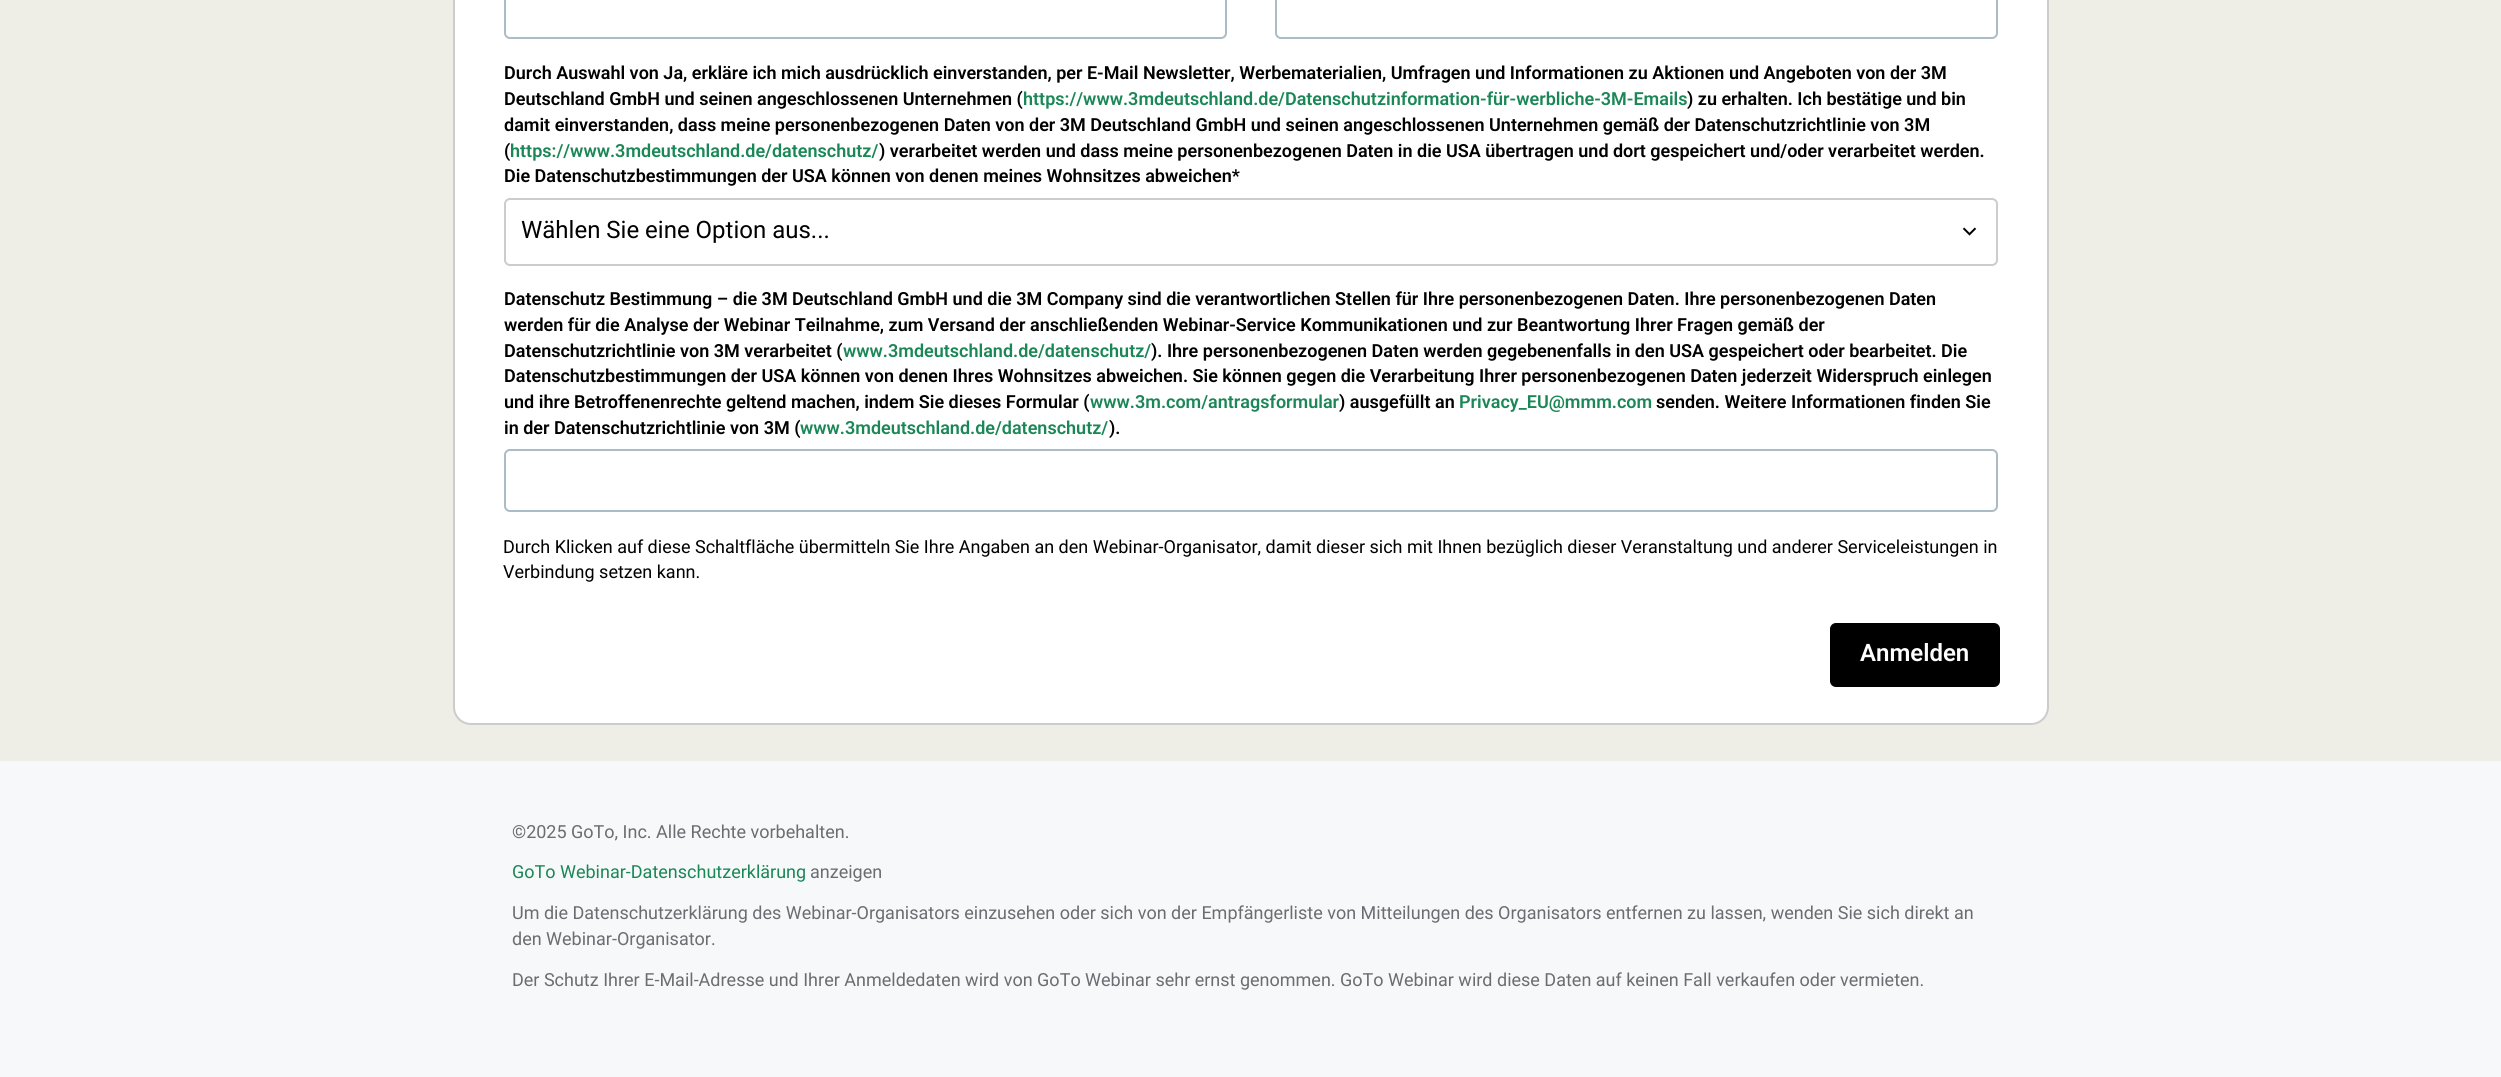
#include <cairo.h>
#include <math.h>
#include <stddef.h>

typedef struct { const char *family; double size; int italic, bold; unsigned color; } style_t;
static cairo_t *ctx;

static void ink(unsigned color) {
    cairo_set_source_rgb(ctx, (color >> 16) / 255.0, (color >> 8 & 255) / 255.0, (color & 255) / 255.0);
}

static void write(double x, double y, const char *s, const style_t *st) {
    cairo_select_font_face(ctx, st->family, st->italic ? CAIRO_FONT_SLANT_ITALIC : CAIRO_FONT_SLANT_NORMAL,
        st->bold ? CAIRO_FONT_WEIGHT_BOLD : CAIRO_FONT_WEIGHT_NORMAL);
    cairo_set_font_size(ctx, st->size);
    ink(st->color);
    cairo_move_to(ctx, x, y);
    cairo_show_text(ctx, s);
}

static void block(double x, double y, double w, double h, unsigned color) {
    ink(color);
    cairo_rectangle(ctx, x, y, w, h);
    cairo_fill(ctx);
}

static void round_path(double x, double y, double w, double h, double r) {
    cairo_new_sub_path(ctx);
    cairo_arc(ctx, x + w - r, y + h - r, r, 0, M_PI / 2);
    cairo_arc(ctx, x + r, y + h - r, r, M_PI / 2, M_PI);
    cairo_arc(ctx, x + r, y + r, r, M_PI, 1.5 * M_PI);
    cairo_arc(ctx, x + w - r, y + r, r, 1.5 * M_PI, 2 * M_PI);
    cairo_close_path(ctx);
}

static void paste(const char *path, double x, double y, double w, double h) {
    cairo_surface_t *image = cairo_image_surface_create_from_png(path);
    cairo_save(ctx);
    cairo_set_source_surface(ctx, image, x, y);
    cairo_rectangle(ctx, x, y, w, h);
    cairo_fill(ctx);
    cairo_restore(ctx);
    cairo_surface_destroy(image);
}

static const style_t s1 = {"Roboto SemiBold", 18, 0, 0, 0x000000};
static const style_t s2 = {"Roboto SemiBold", 18, 0, 0, 0x1b8756};
static const style_t s3 = {"Roboto", 24, 0, 0, 0x000000};
static const style_t s4 = {"Roboto", 18, 0, 0, 0x000000};
static const style_t s5 = {"Roboto SemiBold", 24, 0, 0, 0xffffff};
static const style_t s6 = {"Roboto", 18, 0, 0, 0x6a6d71};
static const style_t s7 = {"Roboto", 18, 0, 0, 0x1b8756};

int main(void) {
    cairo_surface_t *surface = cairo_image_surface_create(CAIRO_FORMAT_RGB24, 2501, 1077);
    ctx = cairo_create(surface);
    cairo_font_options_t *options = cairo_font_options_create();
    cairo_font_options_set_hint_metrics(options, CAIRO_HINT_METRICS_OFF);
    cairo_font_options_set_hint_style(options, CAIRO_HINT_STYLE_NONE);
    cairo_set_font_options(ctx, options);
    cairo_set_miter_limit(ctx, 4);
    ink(0xeeeee7);
    cairo_paint(ctx);
    ink(0xffffff);
    round_path(454, -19, 1594, 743, 17);
    cairo_fill_preserve(ctx);
    ink(0xcccccc);
    cairo_stroke(ctx);
    round_path(505, -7, 721, 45, 5);
    ink(0xacbcc7);
    cairo_stroke(ctx);
    round_path(1276, -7, 721, 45, 5);
    cairo_stroke(ctx);
    write(504, 79, "Durch Auswahl von Ja, erkläre ich mich ausdrücklich einverstanden, per E-Mail Newsletter, Werbematerialien, Umfragen und Informationen zu Aktionen und Angeboten von der 3M", &s1);
    write(504, 105, "Deutschland GmbH und seinen angeschlossenen Unternehmen (", &s1);
    write(1023, 105, "https://www.3mdeutschland.de/Datenschutzinformation-für-werbliche-3M-Emails", &s2);
    write(1687, 105, ") zu erhalten. Ich bestätige und bin", &s1);
    write(504, 131, "damit einverstanden, dass meine personenbezogenen Daten von der 3M Deutschland GmbH und seinen angeschlossenen Unternehmen gemäß der Datenschutzrichtlinie von 3M", &s1);
    write(504, 157, "(", &s1);
    write(510, 157, "https://www.3mdeutschland.de/datenschutz/", &s2);
    write(879, 157, ") verarbeitet werden und dass meine personenbezogenen Daten in die USA übertragen und dort gespeichert und/oder verarbeitet werden.", &s1);
    write(504, 182, "Die Datenschutzbestimmungen der USA können von denen meines Wohnsitzes abweichen*", &s1);
    round_path(505, 199, 1492, 66, 5);
    ink(0xcccccc);
    cairo_stroke(ctx);
    write(521, 238, "Wählen Sie eine Option aus...", &s3);
    paste("pic1.png", 1962, 227, 15, 9);
    write(504, 305, "Datenschutz Bestimmung – die 3M Deutschland GmbH und die 3M Company sind die verantwortlichen Stellen für Ihre personenbezogenen Daten. Ihre personenbezogenen Daten", &s1);
    write(504, 331, "werden für die Analyse der Webinar Teilnahme, zum Versand der anschließenden Webinar-Service Kommunikationen und zur Beantwortung Ihrer Fragen gemäß der", &s1);
    write(504, 357, "Datenschutzrichtlinie von 3M verarbeitet (", &s1);
    write(843, 357, "www.3mdeutschland.de/datenschutz/", &s2);
    write(1151, 357, "). Ihre personenbezogenen Daten werden gegebenenfalls in den USA gespeichert oder bearbeitet. Die", &s1);
    write(504, 382, "Datenschutzbestimmungen der USA können von denen Ihres Wohnsitzes abweichen. Sie können gegen die Verarbeitung Ihrer personenbezogenen Daten jederzeit Widerspruch einlegen", &s1);
    write(504, 408, "und ihre Betroffenenrechte geltend machen, indem Sie dieses Formular (", &s1);
    write(1090, 408, "www.3m.com/antragsformular", &s2);
    write(1339, 408, ") ausgefüllt an", &s1);
    write(1459, 408, "Privacy_EU@mmm.com", &s2);
    write(1656, 408, "senden. Weitere Informationen finden Sie", &s1);
    write(504, 434, "in der Datenschutzrichtlinie von 3M (", &s1);
    write(800, 434, "www.3mdeutschland.de/datenschutz/", &s2);
    write(1109, 434, ").", &s1);
    round_path(505, 450, 1492, 61, 5);
    ink(0xacbcc7);
    cairo_stroke(ctx);
    write(503, 553, "Durch Klicken auf diese Schaltfläche übermitteln Sie Ihre Angaben an den Webinar-Organisator, damit dieser sich mit Ihnen bezüglich dieser Veranstaltung und anderer Serviceleistungen in", &s4);
    write(503, 578, "Verbindung setzen kann.", &s4);
    round_path(1830, 623, 170, 64, 6);
    cairo_fill(ctx);
    write(1860, 661, "Anmelden", &s5);
    block(0, 761, 2501, 316, 0xf7f8fa);
    write(512, 838, "©2025 GoTo, Inc. Alle Rechte vorbehalten.", &s6);
    write(512, 878, "GoTo Webinar-Datenschutzerklärung", &s7);
    write(810, 878, "anzeigen", &s6);
    write(512, 919, "Um die Datenschutzerklärung des Webinar-Organisators einzusehen oder sich von der Empfängerliste von Mitteilungen des Organisators entfernen zu lassen, wenden Sie sich direkt an", &s6);
    write(512, 945, "den Webinar-Organisator.", &s6);
    write(512, 986, "Der Schutz Ihrer E-Mail-Adresse und Ihrer Anmeldedaten wird von GoTo Webinar sehr ernst genommen. GoTo Webinar wird diese Daten auf keinen Fall verkaufen oder vermieten.", &s6);
    cairo_surface_write_to_png(surface, "screenshot.png");
    cairo_font_options_destroy(options);
    cairo_destroy(ctx);
    cairo_surface_destroy(surface);
    return 0;
}
